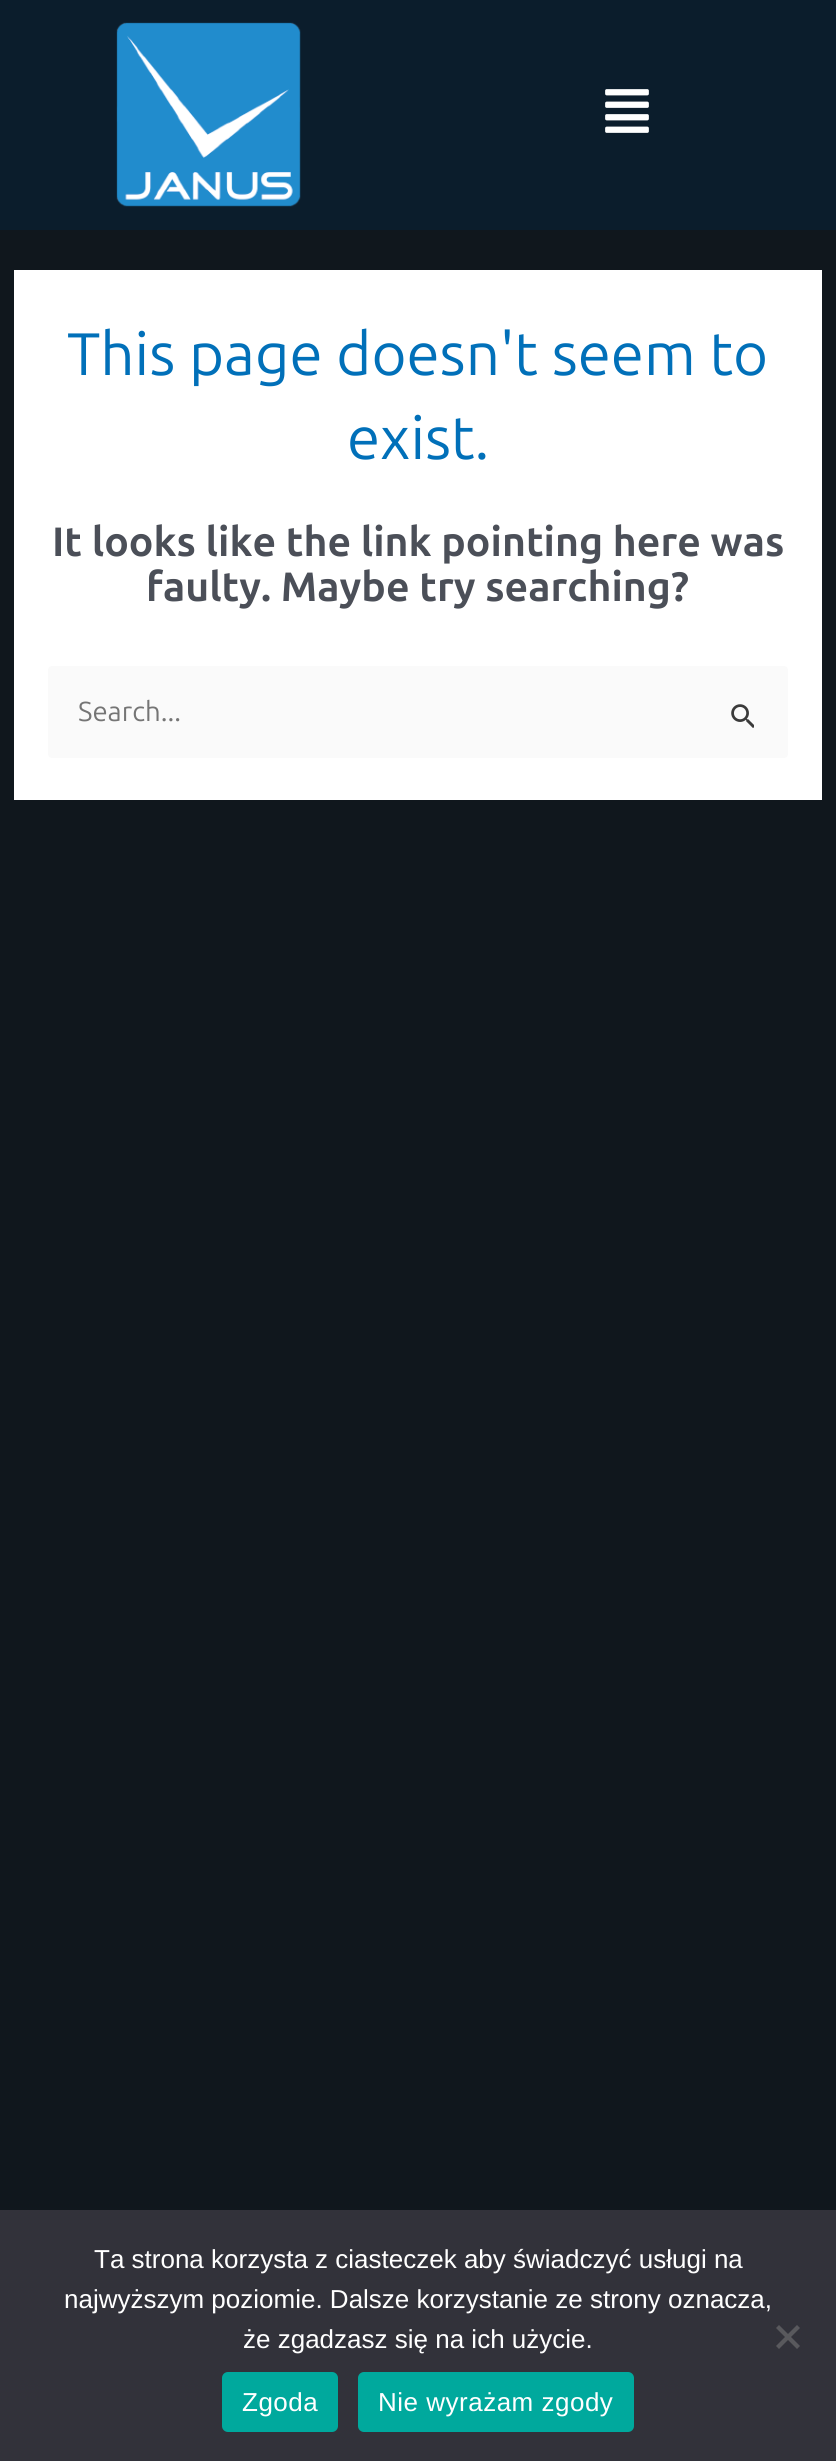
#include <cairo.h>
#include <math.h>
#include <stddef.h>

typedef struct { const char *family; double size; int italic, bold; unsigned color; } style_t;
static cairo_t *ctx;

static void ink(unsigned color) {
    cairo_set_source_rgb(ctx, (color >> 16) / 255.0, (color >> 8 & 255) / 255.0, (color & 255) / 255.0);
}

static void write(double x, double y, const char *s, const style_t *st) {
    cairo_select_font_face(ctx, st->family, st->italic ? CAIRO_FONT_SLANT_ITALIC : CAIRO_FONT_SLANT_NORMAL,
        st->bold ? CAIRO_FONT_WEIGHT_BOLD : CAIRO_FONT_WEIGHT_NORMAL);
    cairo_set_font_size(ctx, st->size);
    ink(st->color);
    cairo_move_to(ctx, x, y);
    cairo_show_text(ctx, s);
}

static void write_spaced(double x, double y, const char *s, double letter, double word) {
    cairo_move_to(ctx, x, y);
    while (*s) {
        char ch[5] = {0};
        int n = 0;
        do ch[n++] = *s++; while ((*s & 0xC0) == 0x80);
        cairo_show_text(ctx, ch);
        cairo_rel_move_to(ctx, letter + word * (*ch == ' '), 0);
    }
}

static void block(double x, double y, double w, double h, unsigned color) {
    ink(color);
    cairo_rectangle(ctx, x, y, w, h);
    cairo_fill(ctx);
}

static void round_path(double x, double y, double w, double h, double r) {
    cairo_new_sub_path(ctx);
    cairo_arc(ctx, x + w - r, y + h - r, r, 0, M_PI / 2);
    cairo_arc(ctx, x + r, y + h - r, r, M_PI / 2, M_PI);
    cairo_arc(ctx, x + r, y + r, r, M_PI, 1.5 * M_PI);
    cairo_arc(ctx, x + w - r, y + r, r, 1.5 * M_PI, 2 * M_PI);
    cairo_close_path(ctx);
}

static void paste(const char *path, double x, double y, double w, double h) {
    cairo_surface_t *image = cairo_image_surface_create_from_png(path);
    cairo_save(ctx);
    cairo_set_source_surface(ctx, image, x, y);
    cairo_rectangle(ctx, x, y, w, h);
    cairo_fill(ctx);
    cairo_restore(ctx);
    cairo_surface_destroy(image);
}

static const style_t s1 = {"Ubuntu", 60, 0, 0, 0x0170b9};
static const style_t s2 = {"Ubuntu", 41, 0, 1, 0x4b4f58};
static const style_t s3 = {"Ubuntu", 27.5, 0, 0, 0x757575};
static const style_t s4 = {"Liberation Sans", 26, 0, 0, 0xffffff};

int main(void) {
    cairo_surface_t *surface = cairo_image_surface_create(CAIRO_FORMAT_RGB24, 836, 2461);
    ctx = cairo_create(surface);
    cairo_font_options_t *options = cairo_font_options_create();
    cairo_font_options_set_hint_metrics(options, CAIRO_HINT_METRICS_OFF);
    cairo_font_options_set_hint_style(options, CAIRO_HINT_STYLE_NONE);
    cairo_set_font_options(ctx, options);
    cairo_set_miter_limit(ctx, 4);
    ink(0x10171d);
    cairo_paint(ctx);
    block(0, 0, 836, 230, 0x0b1d2c);
    paste("pic1.png", 116, 22, 185, 185);
    paste("pic2.png", 605, 89, 44, 44);
    block(14, 270, 808, 530, 0xffffff);
    write(67, 375, "This page doesn't seem to", &s1);
    write(347, 459, "exist.", &s1);
    write(52, 556, "It looks like the link pointing here was", &s2);
    write(146, 601, "faulty. Maybe try searching?", &s2);
    ink(0xfafafa);
    round_path(48, 666, 740, 92, 4);
    cairo_fill(ctx);
    write(78, 721, "Search...", &s3);
    paste("pic3.png", 731, 704, 23, 24);
    block(0, 2210, 836, 251, 0x32323a);
    write(94, 2268, "Ta strona korzysta z ciasteczek aby świadczyć usługi na", &s4);
    write(64, 2308, "najwyższym poziomie. Dalsze korzystanie ze strony oznacza,", &s4);
    write(243, 2348, "że zgadzasz się na ich użycie.", &s4);
    ink(0x59595d);
    cairo_new_path(ctx);
    cairo_move_to(ctx, 797, 2325);
    cairo_line_to(ctx, 800, 2328);
    cairo_line_to(ctx, 779, 2349);
    cairo_line_to(ctx, 776, 2346);
    cairo_close_path(ctx);
    cairo_fill(ctx);
    cairo_new_path(ctx);
    cairo_move_to(ctx, 776, 2328);
    cairo_line_to(ctx, 779, 2325);
    cairo_line_to(ctx, 800, 2346);
    cairo_line_to(ctx, 797, 2349);
    cairo_close_path(ctx);
    cairo_fill(ctx);
    ink(0x00a99d);
    round_path(222, 2372, 116, 60, 6);
    cairo_fill(ctx);
    ink(0xffffff);
    write_spaced(242, 2411, "Zgoda", 0.5, 0);
    ink(0x00a99d);
    round_path(358, 2372, 276, 60, 6);
    cairo_fill(ctx);
    ink(0xffffff);
    write_spaced(378, 2411, "Nie wyrażam zgody", 0.5, 0);
    cairo_surface_write_to_png(surface, "screenshot.png");
    cairo_font_options_destroy(options);
    cairo_destroy(ctx);
    cairo_surface_destroy(surface);
    return 0;
}
